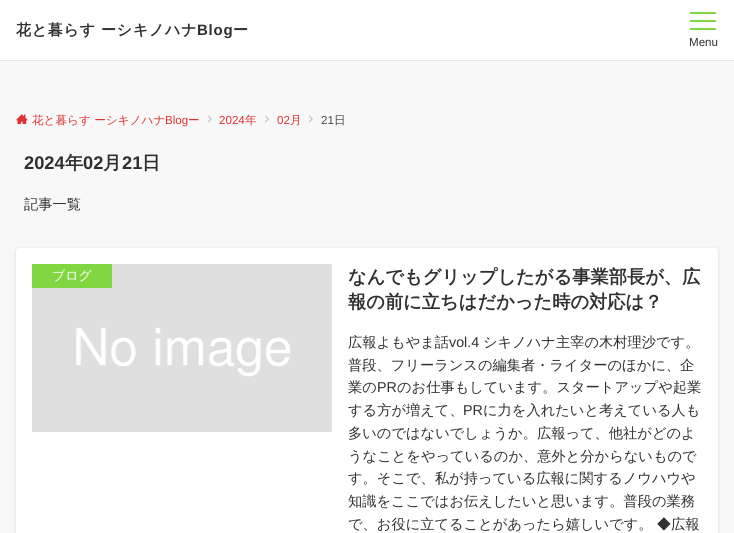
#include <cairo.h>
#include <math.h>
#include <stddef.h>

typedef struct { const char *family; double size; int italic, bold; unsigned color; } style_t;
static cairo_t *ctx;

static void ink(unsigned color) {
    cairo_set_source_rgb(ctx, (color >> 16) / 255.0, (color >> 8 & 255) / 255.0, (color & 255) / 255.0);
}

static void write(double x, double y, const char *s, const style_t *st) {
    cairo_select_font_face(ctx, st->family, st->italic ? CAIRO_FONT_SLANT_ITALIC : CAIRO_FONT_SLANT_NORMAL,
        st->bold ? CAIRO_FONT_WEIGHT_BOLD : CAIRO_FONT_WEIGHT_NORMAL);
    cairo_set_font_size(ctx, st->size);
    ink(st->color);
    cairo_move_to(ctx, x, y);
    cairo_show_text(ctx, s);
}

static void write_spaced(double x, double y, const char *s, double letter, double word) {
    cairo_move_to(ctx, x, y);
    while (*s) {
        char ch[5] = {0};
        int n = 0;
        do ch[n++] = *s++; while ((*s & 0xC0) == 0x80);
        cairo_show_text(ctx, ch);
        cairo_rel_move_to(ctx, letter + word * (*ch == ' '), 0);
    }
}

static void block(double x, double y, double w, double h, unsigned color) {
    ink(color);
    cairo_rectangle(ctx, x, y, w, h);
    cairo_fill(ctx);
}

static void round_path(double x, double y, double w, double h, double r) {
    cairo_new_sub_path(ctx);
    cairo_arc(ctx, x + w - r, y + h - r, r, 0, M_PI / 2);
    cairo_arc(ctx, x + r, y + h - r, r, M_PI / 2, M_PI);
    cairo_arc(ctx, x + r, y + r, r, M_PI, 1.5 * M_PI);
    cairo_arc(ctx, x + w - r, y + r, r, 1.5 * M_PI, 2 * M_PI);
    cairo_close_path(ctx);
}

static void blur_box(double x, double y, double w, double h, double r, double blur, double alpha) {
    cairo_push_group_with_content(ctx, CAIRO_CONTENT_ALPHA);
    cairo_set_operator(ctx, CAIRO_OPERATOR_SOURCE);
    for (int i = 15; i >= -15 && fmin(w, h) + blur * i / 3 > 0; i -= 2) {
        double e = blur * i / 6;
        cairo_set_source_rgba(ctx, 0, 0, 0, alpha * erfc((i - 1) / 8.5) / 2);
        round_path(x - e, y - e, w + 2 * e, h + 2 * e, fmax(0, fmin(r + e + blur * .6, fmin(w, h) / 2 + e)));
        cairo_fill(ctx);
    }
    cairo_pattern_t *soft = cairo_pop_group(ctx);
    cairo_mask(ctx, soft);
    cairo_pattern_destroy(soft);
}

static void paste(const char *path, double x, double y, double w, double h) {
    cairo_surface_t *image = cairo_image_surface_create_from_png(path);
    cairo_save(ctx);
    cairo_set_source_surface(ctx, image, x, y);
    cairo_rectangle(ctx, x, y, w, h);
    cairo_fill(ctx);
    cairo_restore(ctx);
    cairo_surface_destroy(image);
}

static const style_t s1 = {"Liberation Sans", 11.6, 0, 0, 0x303030};
static const style_t s2 = {"WenQuanYi Zen Hei Medium", 11.6, 0, 0, 0xdd3333};
static const style_t s3 = {"Liberation Sans", 11.6, 0, 0, 0xdd3333};
static const style_t s4 = {"Liberation Sans", 11.6, 0, 0, 0x484848};
static const style_t s5 = {"WenQuanYi Zen Hei Medium", 11.6, 0, 0, 0x484848};
static const style_t s6 = {"Liberation Sans", 18.25, 0, 1, 0x303030};
static const style_t s7 = {"WenQuanYi Zen Hei", 18.25, 0, 1, 0x303030};
static const style_t s8 = {"WenQuanYi Zen Hei Medium", 14.25, 0, 0, 0x303030};
static const style_t s9 = {"WenQuanYi Zen Hei Medium", 13, 0, 0, 0xffffff};
static const style_t s10 = {"Liberation Sans", 14.25, 0, 0, 0x303030};

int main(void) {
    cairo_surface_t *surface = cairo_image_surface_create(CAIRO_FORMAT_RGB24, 734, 533);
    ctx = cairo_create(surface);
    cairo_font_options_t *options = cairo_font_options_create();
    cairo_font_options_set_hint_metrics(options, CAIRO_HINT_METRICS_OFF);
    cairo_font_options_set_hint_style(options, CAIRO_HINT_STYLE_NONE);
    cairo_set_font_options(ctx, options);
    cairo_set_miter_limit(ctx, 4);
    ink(0xf8f8f8);
    cairo_paint(ctx);
    block(0, 0, 734, 60, 0xffffff);
    block(0, 60, 734, 1, 0xe6e6e6);
    cairo_select_font_face(ctx, "WenQuanYi Zen Hei", CAIRO_FONT_SLANT_NORMAL, CAIRO_FONT_WEIGHT_BOLD);
    cairo_set_font_size(ctx, 15);
    ink(0x303030);
    write_spaced(16, 35, "花と暮らす ーシキノハナ", 0.75, 0);
    cairo_select_font_face(ctx, "Liberation Sans", CAIRO_FONT_SLANT_NORMAL, CAIRO_FONT_WEIGHT_BOLD);
    write_spaced(197, 35, "Blog", 0.75, 0);
    cairo_select_font_face(ctx, "WenQuanYi Zen Hei", CAIRO_FONT_SLANT_NORMAL, CAIRO_FONT_WEIGHT_BOLD);
    write_spaced(233, 35, "ー", 0.75, 0);
    ink(0x81d742);
    round_path(690, 12, 26, 2, 1);
    cairo_fill(ctx);
    round_path(690, 20, 26, 2, 1);
    cairo_fill(ctx);
    round_path(690, 28, 26, 2, 1);
    cairo_fill(ctx);
    write(689, 46, "Menu", &s1);
    paste("pic1.png", 16, 114, 12, 10);
    write(32, 124, "花と暮らす ーシキノハナ", &s2);
    write(165, 124, "Blog", &s3);
    write(188, 124, "ー", &s2);
    paste("pic2.png", 208, 115, 4, 8);
    write(219, 124, "2024", &s3);
    write(245, 124, "年", &s2);
    paste("pic2.png", 265, 115, 4, 8);
    write(277, 124, "02", &s3);
    write(290, 124, "月", &s2);
    paste("pic2.png", 309, 115, 4, 8);
    write(321, 124, "21", &s4);
    write(334, 124, "日", &s5);
    write(24, 169, "2024", &s6);
    write(65, 169, "年", &s7);
    write(83, 169, "02", &s6);
    write(103, 169, "月", &s7);
    write(122, 169, "21", &s6);
    write(142, 169, "日", &s7);
    write(24, 209, "記事一覧", &s8);
    ink(0x000000);
    blur_box(15, 248, 704, 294, 4, 1.5, 0.08);
    ink(0xffffff);
    round_path(16, 248, 702, 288, 3);
    cairo_fill(ctx);
    paste("pic3.png", 32, 264, 300, 168);
    block(32, 264, 80, 24, 0x81d742);
    write(52, 280, "ブログ", &s9);
    write(348, 283, "なんでもグリップしたがる事業部長が、広", &s7);
    write(348, 308, "報の前に立ちはだかった時の対応は？", &s7);
    write(348, 347, "広報よもやま話", &s8);
    write(449, 347, "vol.4", &s10);
    write(483, 347, "シキノハナ主宰の木村理沙です。", &s8);
    write(348, 370, "普段、フリーランスの編集者・ライターのほかに、企", &s8);
    write(348, 392, "業の", &s8);
    write(377, 392, "PR", &s10);
    write(397, 392, "のお仕事もしています。スタートアップや起業", &s8);
    write(348, 415, "する方が増えて、", &s8);
    write(463, 415, "PR", &s10);
    write(483, 415, "に力を入れたいと考えている人も", &s8);
    write(348, 438, "多いのではないでしょうか。広報って、他社がどのよ", &s8);
    write(348, 461, "うなことをやっているのか、意外と分からないもので", &s8);
    write(348, 483, "す。そこで、私が持っている広報に関するノウハウや", &s8);
    write(348, 506, "知識をここではお伝えしたいと思います。普段の業務", &s8);
    write(348, 529, "で、お役に立てることがあったら嬉しいです。 ◆広報", &s8);
    cairo_surface_write_to_png(surface, "screenshot.png");
    cairo_font_options_destroy(options);
    cairo_destroy(ctx);
    cairo_surface_destroy(surface);
    return 0;
}
